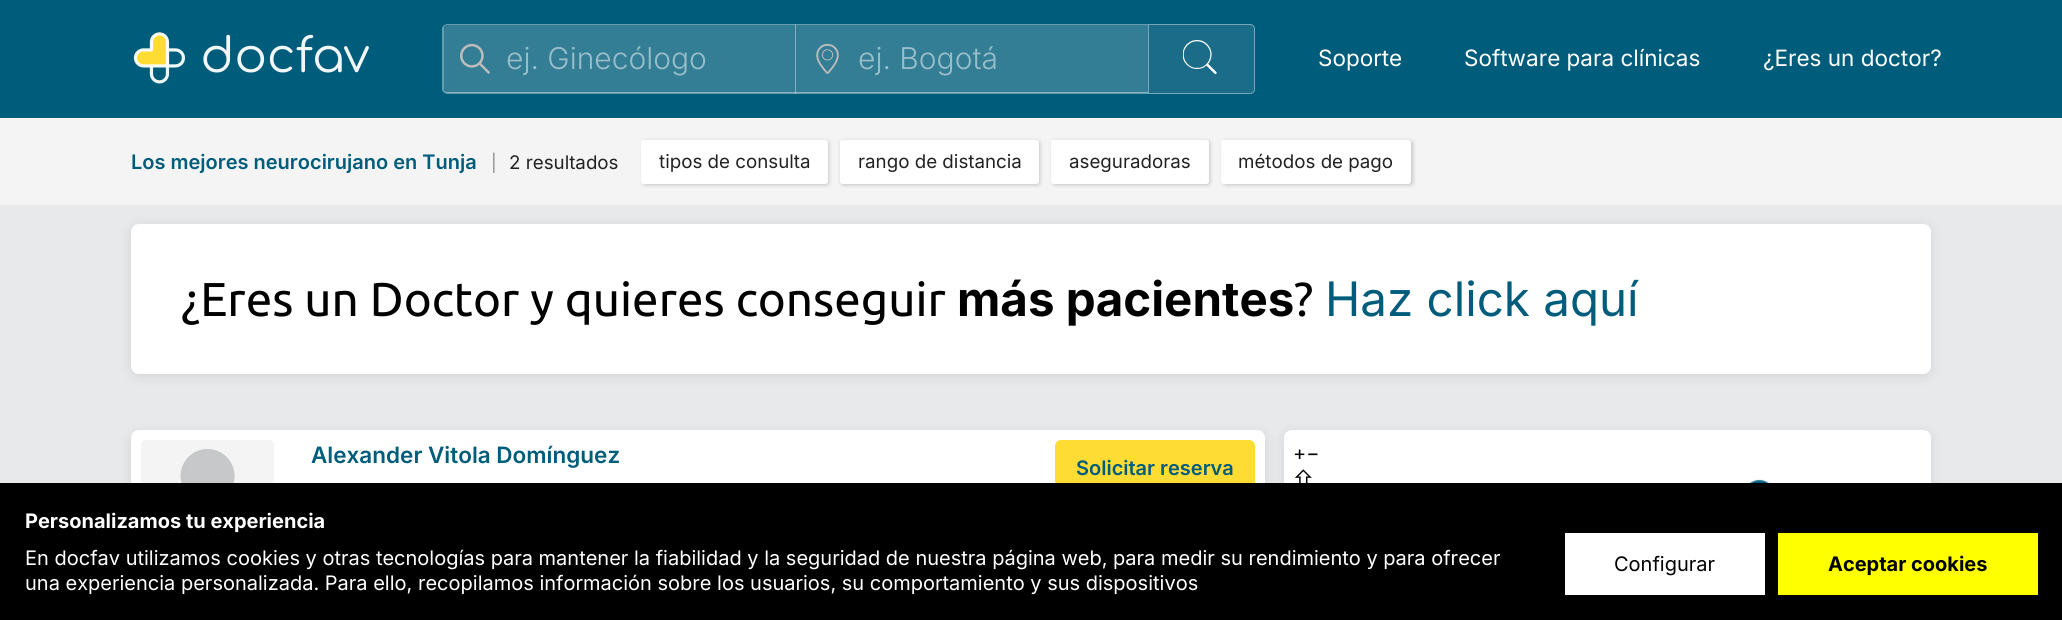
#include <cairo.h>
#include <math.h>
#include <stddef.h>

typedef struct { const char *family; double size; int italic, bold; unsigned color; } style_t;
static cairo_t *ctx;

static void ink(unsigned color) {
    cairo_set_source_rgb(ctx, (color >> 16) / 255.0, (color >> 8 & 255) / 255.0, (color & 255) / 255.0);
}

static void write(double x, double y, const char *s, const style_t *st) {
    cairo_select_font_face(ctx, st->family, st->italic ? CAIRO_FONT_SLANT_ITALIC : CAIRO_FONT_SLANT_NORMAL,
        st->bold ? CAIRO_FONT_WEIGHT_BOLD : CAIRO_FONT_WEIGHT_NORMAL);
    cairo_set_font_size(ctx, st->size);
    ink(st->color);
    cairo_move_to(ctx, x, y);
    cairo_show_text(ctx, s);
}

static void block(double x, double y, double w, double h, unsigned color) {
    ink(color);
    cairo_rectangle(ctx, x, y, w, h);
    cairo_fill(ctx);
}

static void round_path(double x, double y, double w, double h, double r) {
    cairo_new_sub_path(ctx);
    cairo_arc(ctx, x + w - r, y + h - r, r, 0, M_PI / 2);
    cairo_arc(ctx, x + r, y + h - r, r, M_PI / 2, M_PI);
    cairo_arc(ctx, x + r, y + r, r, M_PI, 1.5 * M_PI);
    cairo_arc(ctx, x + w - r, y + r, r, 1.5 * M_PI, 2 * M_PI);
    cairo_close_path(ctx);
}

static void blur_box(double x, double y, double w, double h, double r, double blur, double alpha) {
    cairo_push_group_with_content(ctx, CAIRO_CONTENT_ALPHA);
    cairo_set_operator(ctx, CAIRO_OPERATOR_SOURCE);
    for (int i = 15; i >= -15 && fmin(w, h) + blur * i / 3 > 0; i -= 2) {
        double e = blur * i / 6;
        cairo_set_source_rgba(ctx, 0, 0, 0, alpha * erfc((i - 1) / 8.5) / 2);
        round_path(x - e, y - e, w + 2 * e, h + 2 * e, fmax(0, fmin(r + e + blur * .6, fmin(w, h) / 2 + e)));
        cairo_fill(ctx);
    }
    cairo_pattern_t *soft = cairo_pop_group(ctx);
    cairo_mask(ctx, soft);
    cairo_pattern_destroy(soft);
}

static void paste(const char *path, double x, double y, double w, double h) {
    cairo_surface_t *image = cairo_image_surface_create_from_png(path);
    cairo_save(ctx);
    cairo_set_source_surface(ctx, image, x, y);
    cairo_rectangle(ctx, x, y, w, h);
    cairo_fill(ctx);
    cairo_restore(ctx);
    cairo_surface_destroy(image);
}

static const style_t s1 = {"Inter Light", 30, 0, 0, 0x99beca};
static const style_t s2 = {"Inter", 22.5, 0, 0, 0xffffff};
static const style_t s3 = {"Inter SemiBold", 20, 0, 0, 0x005c7b};
static const style_t s4 = {"Inter", 17, 0, 0, 0x8b8b8b};
static const style_t s5 = {"Inter", 18.75, 0, 0, 0x222222};
static const style_t s6 = {"Ubuntu", 47.5, 0, 0, 0x000000};
static const style_t s7 = {"Inter", 47.5, 0, 1, 0x000000};
static const style_t s8 = {"Inter", 47.5, 0, 0, 0x005c7b};
static const style_t s9 = {"Inter SemiBold", 22.5, 0, 0, 0x005c7b};
static const style_t s10 = {"Inter", 20, 0, 0, 0x000000};
static const style_t s11 = {"Inter", 20, 0, 1, 0xffffff};
static const style_t s12 = {"Inter", 20, 0, 0, 0xffffff};
static const style_t s13 = {"Inter", 20, 0, 1, 0x000000};

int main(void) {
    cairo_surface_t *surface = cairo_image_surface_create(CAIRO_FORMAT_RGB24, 2062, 620);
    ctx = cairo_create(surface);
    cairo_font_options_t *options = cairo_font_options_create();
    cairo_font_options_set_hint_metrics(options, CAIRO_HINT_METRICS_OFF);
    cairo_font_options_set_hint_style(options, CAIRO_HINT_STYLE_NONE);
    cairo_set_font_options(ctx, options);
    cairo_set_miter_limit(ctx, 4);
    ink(0xe8e9eb);
    cairo_paint(ctx);
    block(0, 0, 2062, 118, 0x005c7b);
    paste("pic1.png", 133, 32, 236, 52);
    ink(0x669db0);
    cairo_set_fill_rule(ctx, CAIRO_FILL_RULE_EVEN_ODD);
    cairo_new_path(ctx);
    cairo_move_to(ctx, 448, 24);
    cairo_line_to(ctx, 796, 24);
    cairo_line_to(ctx, 796, 94);
    cairo_line_to(ctx, 448, 94);
    cairo_curve_to(ctx, 445, 94, 442, 92, 442, 89);
    cairo_line_to(ctx, 442, 29);
    cairo_curve_to(ctx, 442, 26, 445, 24, 448, 24);
    cairo_close_path(ctx);
    cairo_move_to(ctx, 448, 25);
    cairo_line_to(ctx, 796, 25);
    cairo_line_to(ctx, 796, 92);
    cairo_line_to(ctx, 448, 92);
    cairo_curve_to(ctx, 445, 92, 444, 91, 444, 89);
    cairo_line_to(ctx, 444, 29);
    cairo_curve_to(ctx, 444, 27, 445, 25, 448, 25);
    cairo_close_path(ctx);
    cairo_fill(ctx);
    cairo_set_source_rgba(ctx, 1, 1, 1, 0.2);
    cairo_new_path(ctx);
    cairo_move_to(ctx, 449, 25);
    cairo_line_to(ctx, 796, 25);
    cairo_line_to(ctx, 796, 93);
    cairo_line_to(ctx, 449, 93);
    cairo_curve_to(ctx, 446, 93, 444, 91, 444, 88);
    cairo_line_to(ctx, 444, 30);
    cairo_curve_to(ctx, 444, 27, 446, 25, 449, 25);
    cairo_close_path(ctx);
    cairo_fill(ctx);
    paste("pic2.png", 460, 43, 30, 31);
    write(506, 69, "ej. Ginecólogo", &s1);
    ink(0x669db0);
    cairo_set_fill_rule(ctx, CAIRO_FILL_RULE_WINDING);
    cairo_new_path(ctx);
    cairo_move_to(ctx, 795, 24);
    cairo_line_to(ctx, 1148, 24);
    cairo_line_to(ctx, 1148, 25);
    cairo_line_to(ctx, 796, 25);
    cairo_close_path(ctx);
    cairo_fill(ctx);
    cairo_set_source_rgba(ctx, 1, 1, 1, 0.4);
    cairo_new_path(ctx);
    cairo_move_to(ctx, 1148, 94);
    cairo_line_to(ctx, 795, 94);
    cairo_line_to(ctx, 796, 92);
    cairo_line_to(ctx, 1148, 92);
    cairo_close_path(ctx);
    cairo_fill(ctx);
    cairo_new_path(ctx);
    cairo_move_to(ctx, 795, 94);
    cairo_line_to(ctx, 795, 24);
    cairo_line_to(ctx, 796, 25);
    cairo_line_to(ctx, 796, 92);
    cairo_close_path(ctx);
    cairo_fill(ctx);
    cairo_set_source_rgba(ctx, 1, 1, 1, 0.2);
    cairo_rectangle(ctx, 796, 25, 352, 68);
    cairo_fill(ctx);
    paste("pic3.png", 816, 43, 23, 31);
    write(858, 69, "ej. Bogotá", &s1);
    ink(0x1a6c88);
    cairo_new_path(ctx);
    cairo_move_to(ctx, 1148, 24);
    cairo_line_to(ctx, 1250, 24);
    cairo_curve_to(ctx, 1253, 24, 1255, 26, 1255, 29);
    cairo_line_to(ctx, 1255, 89);
    cairo_curve_to(ctx, 1255, 92, 1253, 94, 1250, 94);
    cairo_line_to(ctx, 1148, 94);
    cairo_close_path(ctx);
    cairo_fill(ctx);
    cairo_new_path(ctx);
    cairo_move_to(ctx, 1148.5, 24.5);
    cairo_line_to(ctx, 1250, 24.5);
    cairo_curve_to(ctx, 1252.5, 24.5, 1254.5, 26.5, 1254.5, 29);
    cairo_line_to(ctx, 1254.5, 89);
    cairo_curve_to(ctx, 1254.5, 91.5, 1252.5, 93.5, 1250, 93.5);
    cairo_line_to(ctx, 1148.5, 93.5);
    cairo_close_path(ctx);
    cairo_set_source_rgba(ctx, 1, 1, 1, 0.4);
    cairo_set_line_width(ctx, 1);
    cairo_stroke(ctx);
    paste("pic4.png", 1183, 40, 34, 35);
    write(1318, 66, "Soporte", &s2);
    write(1464, 66, "Software para clínicas", &s2);
    write(1763, 66, "¿Eres un doctor?", &s2);
    block(0, 118, 2062, 87, 0xf4f4f4);
    write(131, 169, "Los mejores neurocirujano en Tunja", &s3);
    write(491, 169, "|", &s4);
    write(509, 169, "2 resultados", &s5);
    ink(0x000000);
    blur_box(643, 141, 186, 44, 2.5, 2, 0.2);
    ink(0xffffff);
    round_path(641, 140, 187, 44, 2.5);
    cairo_fill(ctx);
    write(659, 168, "tipos de consulta", &s5);
    ink(0x000000);
    blur_box(841, 141, 199, 44, 2.5, 2, 0.2);
    ink(0xffffff);
    round_path(840, 140, 199, 44, 2.5);
    cairo_fill(ctx);
    write(858, 168, "rango de distancia", &s5);
    ink(0x000000);
    blur_box(1053, 141, 157, 44, 2.5, 2, 0.2);
    ink(0xffffff);
    round_path(1051, 140, 158, 44, 2.5);
    cairo_fill(ctx);
    write(1069, 168, "aseguradoras", &s5);
    ink(0x000000);
    blur_box(1223, 141, 190, 44, 2.5, 2, 0.2);
    ink(0xffffff);
    round_path(1221, 140, 190, 44, 2.5);
    cairo_fill(ctx);
    write(1238, 168, "métodos de pago", &s5);
    ink(0x000000);
    blur_box(131, 226, 1800, 150, 8, 6, 0.1);
    ink(0xffffff);
    round_path(131, 224, 1800, 150, 8);
    cairo_fill(ctx);
    write(181, 316, "¿Eres un Doctor y quieres conseguir", &s6);
    write(957, 316, "más pacientes", &s7);
    write(1294, 316, "?", &s6);
    write(1325, 316, "Haz click aquí", &s8);
    ink(0x000000);
    blur_box(131, 433, 1134, 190, 8, 6, 0.1);
    ink(0xffffff);
    round_path(131, 430, 1134, 190, 8);
    cairo_fill(ctx);
    ink(0xf4f4f4);
    round_path(141, 440, 133, 133, 5);
    cairo_fill(ctx);
    paste("pic5.png", 180, 449, 55, 34);
    write(311, 463, "Alexander Vitola Domínguez", &s9);
    ink(0xffdc34);
    round_path(1056.5, 441.5, 197, 52, 4.5);
    cairo_fill_preserve(ctx);
    cairo_set_line_width(ctx, 3);
    cairo_stroke(ctx);
    write(1076, 475, "Solicitar reserva", &s3);
    ink(0x000000);
    blur_box(1284, 433, 647, 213, 8, 6, 0.1);
    ink(0xffffff);
    round_path(1284, 430, 647, 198, 8);
    cairo_fill(ctx);
    write(1293, 460, "+−", &s10);
    write(1293, 485, "⇧", &s10);
    paste("pic6.png", 1749, 479, 20, 4);
    block(0, 483, 2062, 137, 0x000000);
    write(25, 528, "Personalizamos tu experiencia", &s11);
    write(25, 565, "En docfav utilizamos cookies y otras tecnologías para mantener la fiabilidad y la seguridad de nuestra página web, para medir su rendimiento y para ofrecer", &s12);
    write(25, 590, "una experiencia personalizada. Para ello, recopilamos información sobre los usuarios, su comportamiento y sus dispositivos", &s12);
    block(1565, 533, 200, 62, 0xffffff);
    write(1614, 571, "Configurar", &s10);
    block(1778, 533, 260, 62, 0xffff00);
    write(1828, 571, "Aceptar cookies", &s13);
    cairo_surface_write_to_png(surface, "screenshot.png");
    cairo_font_options_destroy(options);
    cairo_destroy(ctx);
    cairo_surface_destroy(surface);
    return 0;
}
